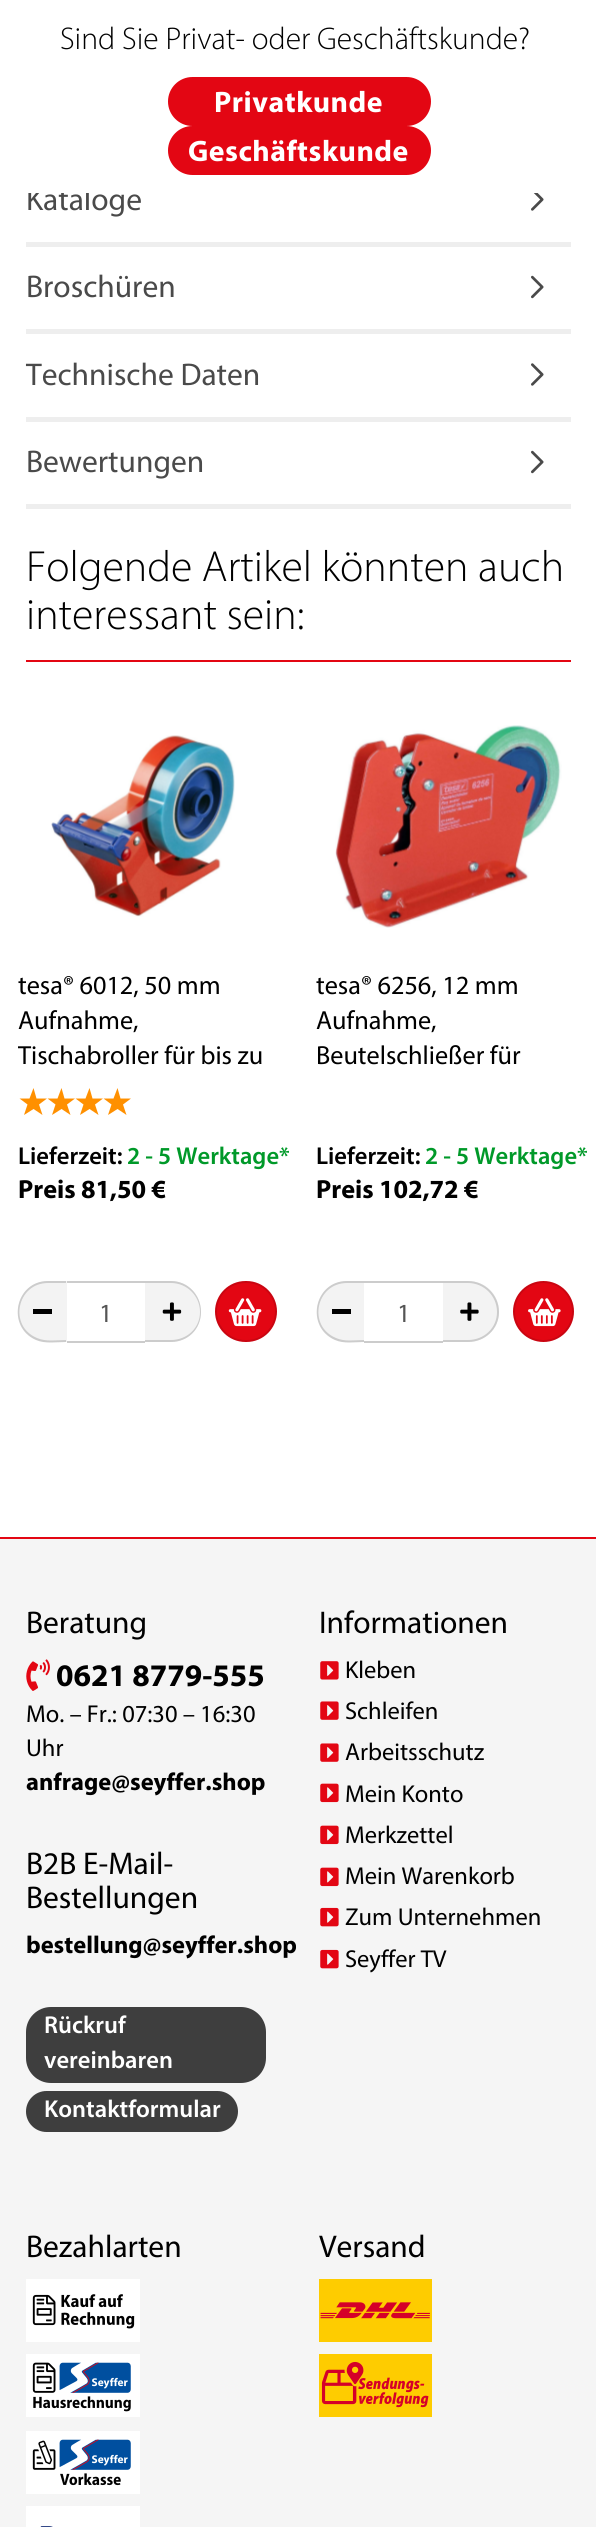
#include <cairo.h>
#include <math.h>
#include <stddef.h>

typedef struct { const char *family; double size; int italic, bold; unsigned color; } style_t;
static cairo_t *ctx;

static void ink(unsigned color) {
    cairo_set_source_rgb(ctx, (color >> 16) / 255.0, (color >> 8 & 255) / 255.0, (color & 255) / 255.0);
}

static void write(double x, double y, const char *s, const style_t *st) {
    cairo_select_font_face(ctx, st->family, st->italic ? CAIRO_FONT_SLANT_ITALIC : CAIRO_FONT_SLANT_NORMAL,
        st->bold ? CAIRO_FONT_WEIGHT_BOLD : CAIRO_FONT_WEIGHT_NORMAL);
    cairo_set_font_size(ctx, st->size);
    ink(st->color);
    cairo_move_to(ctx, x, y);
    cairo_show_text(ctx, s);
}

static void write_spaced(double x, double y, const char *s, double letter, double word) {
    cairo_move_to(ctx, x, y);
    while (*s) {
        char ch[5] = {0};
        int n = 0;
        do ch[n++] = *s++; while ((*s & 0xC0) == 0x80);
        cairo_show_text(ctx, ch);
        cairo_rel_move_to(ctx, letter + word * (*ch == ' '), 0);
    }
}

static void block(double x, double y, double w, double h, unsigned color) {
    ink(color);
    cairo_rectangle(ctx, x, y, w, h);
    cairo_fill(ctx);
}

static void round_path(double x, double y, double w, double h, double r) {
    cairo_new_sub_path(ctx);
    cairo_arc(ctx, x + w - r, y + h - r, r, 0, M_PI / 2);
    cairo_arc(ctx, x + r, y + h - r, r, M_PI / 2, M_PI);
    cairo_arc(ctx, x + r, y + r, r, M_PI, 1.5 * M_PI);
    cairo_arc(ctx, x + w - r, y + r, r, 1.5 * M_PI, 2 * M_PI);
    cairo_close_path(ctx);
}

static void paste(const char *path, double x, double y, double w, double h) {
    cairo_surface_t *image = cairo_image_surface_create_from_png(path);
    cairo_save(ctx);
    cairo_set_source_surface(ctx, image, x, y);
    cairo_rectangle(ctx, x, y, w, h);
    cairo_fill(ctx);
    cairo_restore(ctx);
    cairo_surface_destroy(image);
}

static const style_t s1 = {"Myriad", 31.5, 0, 0, 0x4a4a4a};
static const style_t s2 = {"Myriad Light", 31.5, 0, 0, 0x000000};
static const style_t s3 = {"Myriad Light", 43.75, 0, 0, 0x000000};
static const style_t s4 = {"Myriad", 26.25, 0, 0, 0x000000};
static const style_t s5 = {"Myriad SemiBold", 24.5, 0, 0, 0x000000};
static const style_t s6 = {"Myriad SemiBold", 24.5, 0, 0, 0x009929};
static const style_t s7 = {"Myriad", 26.25, 0, 1, 0x000000};
static const style_t s8 = {"Myriad", 26.25, 0, 0, 0x555555};
static const style_t s9 = {"Myriad", 31.5, 0, 0, 0x000000};
static const style_t s10 = {"Myriad", 31.5, 0, 1, 0x000000};
static const style_t s11 = {"Myriad", 24.5, 0, 0, 0x000000};
static const style_t s12 = {"Myriad", 24.5, 0, 1, 0x000000};
static const style_t s13 = {"Myriad SemiBold", 24.5, 0, 0, 0xffffff};

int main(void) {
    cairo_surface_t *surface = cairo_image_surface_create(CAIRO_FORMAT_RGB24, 596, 2527);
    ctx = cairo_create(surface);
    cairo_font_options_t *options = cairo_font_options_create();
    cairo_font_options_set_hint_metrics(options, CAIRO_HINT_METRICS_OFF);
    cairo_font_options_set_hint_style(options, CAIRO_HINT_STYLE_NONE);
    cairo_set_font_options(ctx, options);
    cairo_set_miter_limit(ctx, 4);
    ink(0xffffff);
    cairo_paint(ctx);
    write(26, 210, "Kataloge", &s1);
    block(28, 187, 62, 6, 0xffffff);
    write(60, 49, "Sind Sie Privat- oder Geschäftskunde?", &s2);
    ink(0xe30613);
    round_path(168, 77, 263, 49, 24.5);
    cairo_fill(ctx);
    cairo_select_font_face(ctx, "Myriad", CAIRO_FONT_SLANT_NORMAL, CAIRO_FONT_WEIGHT_BOLD);
    cairo_set_font_size(ctx, 29.75);
    ink(0xffffff);
    write_spaced(214, 112, "Privatkunde", 0.5, 0);
    ink(0xe30613);
    round_path(168, 126, 263, 49, 24.5);
    cairo_fill(ctx);
    ink(0xffffff);
    write_spaced(188, 161, "Geschäftskunde", 0.5, 0);
    block(26, 242, 545, 5, 0xeeeeee);
    paste("pic1.png", 531, 193, 13, 18);
    block(26, 329, 545, 5, 0xeeeeee);
    write(26, 297, "Broschüren", &s1);
    paste("pic2.png", 531, 275, 13, 24);
    block(26, 417, 545, 5, 0xeeeeee);
    write(26, 385, "Technische Daten", &s1);
    paste("pic3.png", 531, 363, 13, 23);
    block(26, 504, 545, 5, 0xeeeeee);
    write(26, 472, "Bewertungen", &s1);
    paste("pic2.png", 531, 450, 13, 24);
    block(26, 660, 545, 2, 0xe30613);
    write(26, 581, "Folgende Artikel könnten auch", &s3);
    write(26, 629, "interessant sein:", &s3);
    paste("pic4.png", 51, 735, 184, 182);
    write(18, 994, "tesa® 6012, 50 mm", &s4);
    write(18, 1029, "Aufnahme,", &s4);
    cairo_save(ctx);
    cairo_rectangle(ctx, 18, 968, 262, 105);
    cairo_clip(ctx);
    write(18, 1064, "Tischabroller für bis zu", &s4);
    cairo_restore(ctx);
    ink(0xff9000);
    cairo_new_path(ctx);
    cairo_move_to(ctx, 33.5, 1109);
    cairo_line_to(ctx, 24, 1115);
    cairo_line_to(ctx, 27.5, 1104.5);
    cairo_line_to(ctx, 19.5, 1098.5);
    cairo_line_to(ctx, 29.5, 1098.5);
    cairo_line_to(ctx, 33.5, 1088);
    cairo_line_to(ctx, 36.5, 1098.5);
    cairo_line_to(ctx, 47, 1098.5);
    cairo_line_to(ctx, 39, 1104.5);
    cairo_line_to(ctx, 42.5, 1115);
    cairo_close_path(ctx);
    cairo_move_to(ctx, 61.5, 1109);
    cairo_line_to(ctx, 52, 1115);
    cairo_line_to(ctx, 55.5, 1104.5);
    cairo_line_to(ctx, 47.5, 1098.5);
    cairo_line_to(ctx, 57.5, 1098.5);
    cairo_line_to(ctx, 61.5, 1088);
    cairo_line_to(ctx, 64.5, 1098.5);
    cairo_line_to(ctx, 75, 1098.5);
    cairo_line_to(ctx, 67, 1104.5);
    cairo_line_to(ctx, 70.5, 1115);
    cairo_close_path(ctx);
    cairo_fill(ctx);
    cairo_new_path(ctx);
    cairo_move_to(ctx, 89.5, 1109);
    cairo_line_to(ctx, 80, 1115);
    cairo_line_to(ctx, 83.5, 1104.5);
    cairo_line_to(ctx, 75.5, 1098.5);
    cairo_line_to(ctx, 85.5, 1098.5);
    cairo_line_to(ctx, 89.5, 1088);
    cairo_line_to(ctx, 92.5, 1098.5);
    cairo_line_to(ctx, 103, 1098.5);
    cairo_line_to(ctx, 95, 1104.5);
    cairo_line_to(ctx, 98.5, 1115);
    cairo_close_path(ctx);
    cairo_move_to(ctx, 117.5, 1109);
    cairo_line_to(ctx, 108, 1115);
    cairo_line_to(ctx, 111.5, 1104.5);
    cairo_line_to(ctx, 103.5, 1098.5);
    cairo_line_to(ctx, 113.5, 1098.5);
    cairo_line_to(ctx, 117.5, 1088);
    cairo_line_to(ctx, 120.5, 1098.5);
    cairo_line_to(ctx, 131, 1098.5);
    cairo_line_to(ctx, 123, 1104.5);
    cairo_line_to(ctx, 126.5, 1115);
    cairo_close_path(ctx);
    cairo_fill(ctx);
    write(18, 1164, "Lieferzeit:", &s5);
    write(127, 1164, "2 - 5 Werktage*", &s6);
    write(18, 1198, "Preis 81,50 €", &s7);
    ink(0xf3f3f3);
    cairo_new_path(ctx);
    cairo_move_to(ctx, 48.5, 1281);
    cairo_line_to(ctx, 67, 1281);
    cairo_line_to(ctx, 67, 1342);
    cairo_line_to(ctx, 48.5, 1342);
    cairo_curve_to(ctx, 31.5, 1342, 18, 1328.5, 18, 1311.5);
    cairo_curve_to(ctx, 18, 1294.5, 31.5, 1281, 48.5, 1281);
    cairo_close_path(ctx);
    cairo_fill(ctx);
    ink(0xcccccc);
    cairo_set_fill_rule(ctx, CAIRO_FILL_RULE_EVEN_ODD);
    cairo_new_path(ctx);
    cairo_move_to(ctx, 48, 1281);
    cairo_line_to(ctx, 66, 1281);
    cairo_line_to(ctx, 66, 1342);
    cairo_curve_to(ctx, 57, 1342, 45, 1344, 36, 1340);
    cairo_curve_to(ctx, 6, 1327, 15, 1281, 48, 1281);
    cairo_close_path(ctx);
    cairo_move_to(ctx, 48, 1283);
    cairo_line_to(ctx, 66, 1283);
    cairo_line_to(ctx, 66, 1340);
    cairo_curve_to(ctx, 57, 1340, 46, 1342, 37, 1338);
    cairo_curve_to(ctx, 8, 1326, 17, 1283, 48, 1283);
    cairo_close_path(ctx);
    cairo_fill(ctx);
    block(33, 1309, 19, 5, 0x000000);
    block(67, 1281, 78, 2, 0xcccccc);
    block(67, 1341, 78, 2, 0xcccccc);
    write(99, 1322, "1", &s8);
    ink(0xf3f3f3);
    cairo_new_path(ctx);
    cairo_move_to(ctx, 145, 1281);
    cairo_line_to(ctx, 170.5, 1281);
    cairo_curve_to(ctx, 187.5, 1281, 201, 1294.5, 201, 1311.5);
    cairo_curve_to(ctx, 201, 1328.5, 187.5, 1342, 170.5, 1342);
    cairo_line_to(ctx, 145, 1342);
    cairo_close_path(ctx);
    cairo_fill(ctx);
    ink(0xcccccc);
    cairo_new_path(ctx);
    cairo_move_to(ctx, 145, 1281);
    cairo_line_to(ctx, 171, 1281);
    cairo_curve_to(ctx, 188, 1281, 201, 1295, 201, 1312);
    cairo_curve_to(ctx, 201, 1329, 188, 1342, 171, 1342);
    cairo_line_to(ctx, 145, 1342);
    cairo_close_path(ctx);
    cairo_move_to(ctx, 145, 1283);
    cairo_line_to(ctx, 171, 1283);
    cairo_curve_to(ctx, 187, 1283, 200, 1296, 200, 1312);
    cairo_curve_to(ctx, 200, 1328, 187, 1340, 171, 1340);
    cairo_line_to(ctx, 145, 1340);
    cairo_close_path(ctx);
    cairo_fill(ctx);
    paste("pic5.png", 162, 1302, 20, 19);
    ink(0xe30613);
    round_path(216, 1282, 60, 59, 29.5);
    cairo_fill_preserve(ctx);
    ink(0xca0511);
    cairo_stroke(ctx);
    paste("pic6.png", 228, 1298, 34, 29);
    paste("pic7.png", 335, 725, 227, 203);
    write(316, 994, "tesa® 6256, 12 mm", &s4);
    write(316, 1029, "Aufnahme,", &s4);
    write(316, 1064, "Beutelschließer für", &s4);
    write(316, 1164, "Lieferzeit:", &s5);
    write(425, 1164, "2 - 5 Werktage*", &s6);
    write(316, 1198, "Preis 102,72 €", &s7);
    ink(0xf3f3f3);
    cairo_new_path(ctx);
    cairo_move_to(ctx, 347.5, 1281);
    cairo_line_to(ctx, 364, 1281);
    cairo_line_to(ctx, 364, 1342);
    cairo_line_to(ctx, 347.5, 1342);
    cairo_curve_to(ctx, 330.5, 1342, 317, 1328.5, 317, 1311.5);
    cairo_curve_to(ctx, 317, 1294.5, 330.5, 1281, 347.5, 1281);
    cairo_close_path(ctx);
    cairo_fill(ctx);
    ink(0xcccccc);
    cairo_new_path(ctx);
    cairo_move_to(ctx, 347, 1281);
    cairo_line_to(ctx, 364, 1281);
    cairo_line_to(ctx, 364, 1342);
    cairo_curve_to(ctx, 355, 1342, 344, 1344, 335, 1340);
    cairo_curve_to(ctx, 305, 1327, 314, 1281, 347, 1281);
    cairo_close_path(ctx);
    cairo_move_to(ctx, 347, 1283);
    cairo_line_to(ctx, 364, 1283);
    cairo_line_to(ctx, 364, 1340);
    cairo_curve_to(ctx, 355, 1340, 345, 1342, 336, 1338);
    cairo_curve_to(ctx, 307, 1326, 316, 1283, 347, 1283);
    cairo_close_path(ctx);
    cairo_fill(ctx);
    block(332, 1309, 19, 5, 0x000000);
    block(364, 1281, 79, 2, 0xcccccc);
    block(364, 1341, 79, 2, 0xcccccc);
    write(397, 1322, "1", &s8);
    ink(0xf3f3f3);
    cairo_new_path(ctx);
    cairo_move_to(ctx, 443, 1281);
    cairo_line_to(ctx, 468.5, 1281);
    cairo_curve_to(ctx, 485.5, 1281, 499, 1294.5, 499, 1311.5);
    cairo_curve_to(ctx, 499, 1328.5, 485.5, 1342, 468.5, 1342);
    cairo_line_to(ctx, 443, 1342);
    cairo_close_path(ctx);
    cairo_fill(ctx);
    ink(0xcccccc);
    cairo_new_path(ctx);
    cairo_move_to(ctx, 443, 1281);
    cairo_line_to(ctx, 468, 1281);
    cairo_curve_to(ctx, 485, 1281, 499, 1295, 499, 1312);
    cairo_curve_to(ctx, 499, 1329, 485, 1342, 468, 1342);
    cairo_line_to(ctx, 443, 1342);
    cairo_close_path(ctx);
    cairo_move_to(ctx, 443, 1283);
    cairo_line_to(ctx, 468, 1283);
    cairo_curve_to(ctx, 484, 1283, 497, 1296, 497, 1312);
    cairo_curve_to(ctx, 497, 1328, 484, 1340, 468, 1340);
    cairo_line_to(ctx, 443, 1340);
    cairo_close_path(ctx);
    cairo_fill(ctx);
    paste("pic8.png", 460, 1302, 19, 19);
    ink(0xe30613);
    cairo_arc(ctx, 543.5, 1311.5, 29.5, 0, 2 * M_PI);
    cairo_fill_preserve(ctx);
    ink(0xca0511);
    cairo_stroke(ctx);
    paste("pic9.png", 528, 1298, 33, 29);
    block(0, 1539, 596, 988, 0xf5f5f5);
    block(0, 1537, 596, 2, 0xe30613);
    write(26, 1633, "Beratung", &s9);
    paste("pic10.png", 26, 1659, 24, 32);
    write(56, 1686, "0621 8779-555", &s10);
    write(26, 1722, "Mo. – Fr.: 07:30 – 16:30", &s11);
    write(26, 1756, "Uhr", &s11);
    write(26, 1790, "anfrage@seyffer.shop", &s12);
    write(26, 1874, "B2B E-Mail-", &s9);
    write(26, 1908, "Bestellungen", &s9);
    write(26, 1953, "bestellung@seyffer.shop", &s12);
    ink(0x3e3e3e);
    round_path(26, 2007, 240, 76, 25);
    cairo_fill(ctx);
    write(44, 2033, "Rückruf", &s13);
    write(44, 2068, "vereinbaren", &s13);
    ink(0x3e3e3e);
    round_path(26, 2091, 212, 41, 20.5);
    cairo_fill(ctx);
    write(44, 2117, "Kontaktformular", &s13);
    write(319, 1633, "Informationen", &s9);
    paste("pic11.png", 320, 1661, 19, 19);
    write(345, 1678, "Kleben", &s11);
    paste("pic12.png", 320, 1701, 19, 19);
    write(345, 1719, "Schleifen", &s11);
    paste("pic12.png", 320, 1743, 19, 19);
    write(345, 1760, "Arbeitsschutz", &s11);
    paste("pic13.png", 320, 1783, 19, 20);
    write(345, 1802, "Mein Konto", &s11);
    paste("pic13.png", 320, 1825, 19, 20);
    write(345, 1843, "Merkzettel", &s11);
    paste("pic13.png", 320, 1867, 19, 20);
    write(345, 1884, "Mein Warenkorb", &s11);
    paste("pic14.png", 320, 1907, 19, 20);
    write(345, 1925, "Zum Unternehmen", &s11);
    paste("pic14.png", 320, 1949, 19, 20);
    write(345, 1967, "Seyffer TV", &s11);
    write(26, 2257, "Bezahlarten", &s9);
    block(26, 2279, 114, 63, 0xffffff);
    paste("pic15.png", 32, 2294, 103, 35);
    block(26, 2354, 114, 63, 0xffffff);
    paste("pic16.png", 32, 2362, 99, 50);
    block(26, 2431, 114, 63, 0xffffff);
    paste("pic17.png", 32, 2439, 99, 47);
    block(26, 2506, 114, 21, 0xffffff);
    paste("pic18.png", 40, 2526, 13, 1);
    write(319, 2257, "Versand", &s9);
    paste("pic19.png", 319, 2279, 113, 63);
    paste("pic20.png", 319, 2354, 113, 63);
    cairo_surface_write_to_png(surface, "screenshot.png");
    cairo_font_options_destroy(options);
    cairo_destroy(ctx);
    cairo_surface_destroy(surface);
    return 0;
}
